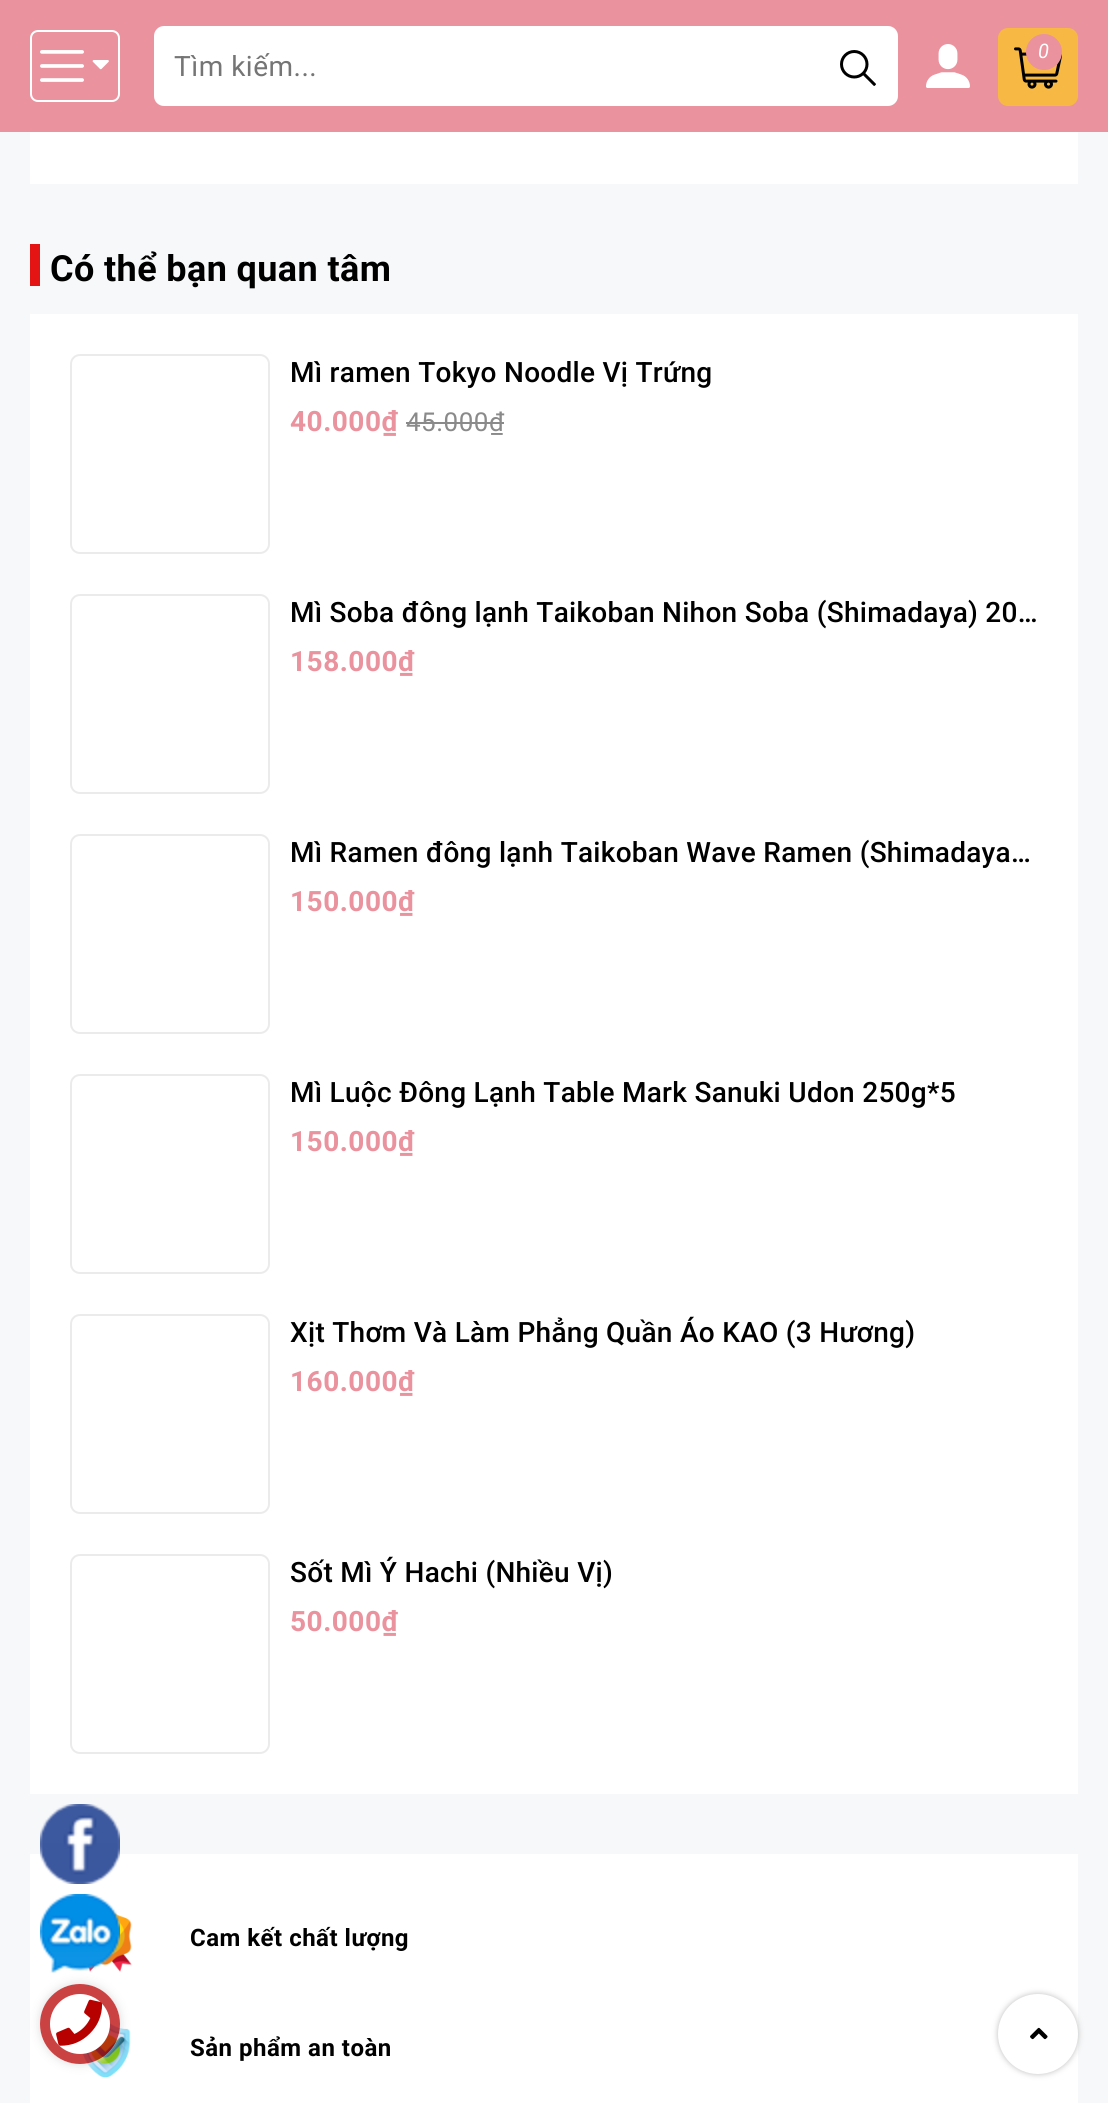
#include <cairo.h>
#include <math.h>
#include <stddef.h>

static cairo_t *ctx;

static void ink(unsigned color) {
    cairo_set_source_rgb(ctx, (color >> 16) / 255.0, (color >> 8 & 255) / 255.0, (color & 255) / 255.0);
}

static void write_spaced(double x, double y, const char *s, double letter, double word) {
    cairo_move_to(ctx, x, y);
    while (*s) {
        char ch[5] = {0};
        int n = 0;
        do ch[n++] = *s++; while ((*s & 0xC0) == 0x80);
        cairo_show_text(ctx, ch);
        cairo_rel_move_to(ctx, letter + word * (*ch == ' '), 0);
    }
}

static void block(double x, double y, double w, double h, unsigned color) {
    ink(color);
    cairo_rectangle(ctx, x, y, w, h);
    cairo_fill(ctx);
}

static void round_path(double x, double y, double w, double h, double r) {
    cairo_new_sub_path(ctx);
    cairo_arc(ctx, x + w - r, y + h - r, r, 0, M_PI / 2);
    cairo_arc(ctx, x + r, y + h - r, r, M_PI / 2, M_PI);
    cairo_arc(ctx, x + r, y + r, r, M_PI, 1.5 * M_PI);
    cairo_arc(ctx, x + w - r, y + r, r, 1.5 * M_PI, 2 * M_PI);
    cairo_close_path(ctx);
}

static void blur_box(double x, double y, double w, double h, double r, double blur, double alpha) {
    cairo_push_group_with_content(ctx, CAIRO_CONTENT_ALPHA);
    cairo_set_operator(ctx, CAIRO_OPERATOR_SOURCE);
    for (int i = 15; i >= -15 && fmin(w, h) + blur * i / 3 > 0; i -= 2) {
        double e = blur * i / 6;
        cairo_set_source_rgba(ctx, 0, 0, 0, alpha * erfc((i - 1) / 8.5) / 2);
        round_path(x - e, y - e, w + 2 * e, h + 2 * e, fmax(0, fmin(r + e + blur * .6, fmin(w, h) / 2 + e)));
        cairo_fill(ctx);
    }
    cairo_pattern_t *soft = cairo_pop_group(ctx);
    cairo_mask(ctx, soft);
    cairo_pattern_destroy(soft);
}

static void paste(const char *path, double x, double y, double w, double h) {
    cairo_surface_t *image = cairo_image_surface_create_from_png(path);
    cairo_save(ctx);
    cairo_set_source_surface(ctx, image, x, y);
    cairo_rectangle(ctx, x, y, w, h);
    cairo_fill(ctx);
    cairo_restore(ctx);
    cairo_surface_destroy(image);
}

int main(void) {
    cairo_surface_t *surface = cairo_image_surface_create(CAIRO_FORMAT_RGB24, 1108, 2103);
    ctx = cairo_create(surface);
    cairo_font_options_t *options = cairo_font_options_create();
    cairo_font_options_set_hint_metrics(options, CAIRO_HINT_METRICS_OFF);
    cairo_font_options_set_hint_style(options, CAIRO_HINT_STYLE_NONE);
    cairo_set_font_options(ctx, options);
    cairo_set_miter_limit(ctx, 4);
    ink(0xf7f8f9);
    cairo_paint(ctx);
    block(0, 0, 1108, 132, 0xea929d);
    round_path(31, 31, 88, 70, 7);
    ink(0xffffff);
    cairo_stroke(ctx);
    paste("pic1.png", 40, 50, 44, 32);
    paste("pic2.png", 92, 60, 17, 10);
    round_path(154, 26, 744, 80, 10);
    cairo_fill(ctx);
    cairo_select_font_face(ctx, "Roboto", CAIRO_FONT_SLANT_NORMAL, CAIRO_FONT_WEIGHT_NORMAL);
    cairo_set_font_size(ctx, 28);
    ink(0x757575);
    write_spaced(174, 76, "Tìm kiếm...", 0.5, 0);
    paste("pic3.png", 840, 50, 36, 36);
    paste("pic4.png", 926, 44, 44, 44);
    ink(0xf7b944);
    round_path(998, 28, 80, 78, 10);
    cairo_fill(ctx);
    paste("pic5.png", 1014, 47, 48, 42);
    ink(0xea929d);
    cairo_arc(ctx, 1044, 52, 18, 0, 2 * M_PI);
    cairo_fill(ctx);
    cairo_select_font_face(ctx, "Roboto", CAIRO_FONT_SLANT_ITALIC, CAIRO_FONT_WEIGHT_NORMAL);
    cairo_set_font_size(ctx, 20);
    ink(0xffffff);
    write_spaced(1038, 58, "0", 0.5, 0);
    block(30, 132, 1048, 52, 0xffffff);
    block(30, 244, 10, 42, 0xe51414);
    cairo_select_font_face(ctx, "Roboto", CAIRO_FONT_SLANT_NORMAL, CAIRO_FONT_WEIGHT_BOLD);
    cairo_set_font_size(ctx, 36);
    ink(0x000000);
    write_spaced(50, 281, "Có thể bạn quan tâm", 0.4, 0);
    block(30, 314, 1048, 1480, 0xffffff);
    round_path(71, 355, 198, 198, 9);
    ink(0xebebeb);
    cairo_stroke(ctx);
    cairo_select_font_face(ctx, "Roboto Medium", CAIRO_FONT_SLANT_NORMAL, CAIRO_FONT_WEIGHT_NORMAL);
    cairo_set_font_size(ctx, 28);
    ink(0x000000);
    write_spaced(290, 382, "Mì ramen Tokyo Noodle Vị Trứng", 0.28, 0);
    cairo_select_font_face(ctx, "Roboto", CAIRO_FONT_SLANT_NORMAL, CAIRO_FONT_WEIGHT_BOLD);
    ink(0xea929d);
    write_spaced(290, 431, "40.000₫", 0.5, 0);
    cairo_select_font_face(ctx, "Roboto", CAIRO_FONT_SLANT_NORMAL, CAIRO_FONT_WEIGHT_NORMAL);
    cairo_set_font_size(ctx, 26);
    ink(0x8a8a8a);
    write_spaced(406, 431, "45.000₫", 0.5, 0);
    block(406, 422, 98, 2, 0x8a8a8a);
    round_path(71, 595, 198, 198, 9);
    ink(0xebebeb);
    cairo_stroke(ctx);
    cairo_select_font_face(ctx, "Roboto Medium", CAIRO_FONT_SLANT_NORMAL, CAIRO_FONT_WEIGHT_NORMAL);
    cairo_set_font_size(ctx, 28);
    ink(0x000000);
    write_spaced(290, 622, "Mì Soba đông lạnh Taikoban Nihon Soba (Shimadaya) 20…", 0.28, 0);
    cairo_select_font_face(ctx, "Roboto", CAIRO_FONT_SLANT_NORMAL, CAIRO_FONT_WEIGHT_BOLD);
    ink(0xea929d);
    write_spaced(290, 671, "158.000₫", 0.5, 0);
    round_path(71, 835, 198, 198, 9);
    ink(0xebebeb);
    cairo_stroke(ctx);
    cairo_select_font_face(ctx, "Roboto Medium", CAIRO_FONT_SLANT_NORMAL, CAIRO_FONT_WEIGHT_NORMAL);
    ink(0x000000);
    write_spaced(290, 862, "Mì Ramen đông lạnh Taikoban Wave Ramen (Shimadaya…", 0.28, 0);
    cairo_select_font_face(ctx, "Roboto", CAIRO_FONT_SLANT_NORMAL, CAIRO_FONT_WEIGHT_BOLD);
    ink(0xea929d);
    write_spaced(290, 911, "150.000₫", 0.5, 0);
    round_path(71, 1075, 198, 198, 9);
    ink(0xebebeb);
    cairo_stroke(ctx);
    cairo_select_font_face(ctx, "Roboto Medium", CAIRO_FONT_SLANT_NORMAL, CAIRO_FONT_WEIGHT_NORMAL);
    ink(0x000000);
    write_spaced(290, 1102, "Mì Luộc Đông Lạnh Table Mark Sanuki Udon 250g*5", 0.28, 0);
    cairo_select_font_face(ctx, "Roboto", CAIRO_FONT_SLANT_NORMAL, CAIRO_FONT_WEIGHT_BOLD);
    ink(0xea929d);
    write_spaced(290, 1151, "150.000₫", 0.5, 0);
    round_path(71, 1315, 198, 198, 9);
    ink(0xebebeb);
    cairo_stroke(ctx);
    cairo_select_font_face(ctx, "Roboto Medium", CAIRO_FONT_SLANT_NORMAL, CAIRO_FONT_WEIGHT_NORMAL);
    ink(0x000000);
    write_spaced(290, 1342, "Xịt Thơm Và Làm Phẳng Quần Áo KAO (3 Hương)", 0.28, 0);
    cairo_select_font_face(ctx, "Roboto", CAIRO_FONT_SLANT_NORMAL, CAIRO_FONT_WEIGHT_BOLD);
    ink(0xea929d);
    write_spaced(290, 1391, "160.000₫", 0.5, 0);
    round_path(71, 1555, 198, 198, 9);
    ink(0xebebeb);
    cairo_stroke(ctx);
    cairo_select_font_face(ctx, "Roboto Medium", CAIRO_FONT_SLANT_NORMAL, CAIRO_FONT_WEIGHT_NORMAL);
    ink(0x000000);
    write_spaced(290, 1582, "Sốt Mì Ý Hachi (Nhiều Vị)", 0.28, 0);
    cairo_select_font_face(ctx, "Roboto", CAIRO_FONT_SLANT_NORMAL, CAIRO_FONT_WEIGHT_BOLD);
    ink(0xea929d);
    write_spaced(290, 1631, "50.000₫", 0.5, 0);
    block(30, 1854, 1048, 249, 0xffffff);
    paste("pic6.png", 40, 1804, 80, 80);
    paste("pic9.png", 88, 1906, 44, 66);
    paste("pic10.png", 82, 2022, 49, 56);
    cairo_save(ctx);
    cairo_set_fill_rule(ctx, CAIRO_FILL_RULE_EVEN_ODD);
    cairo_new_path(ctx);
    cairo_move_to(ctx, 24, 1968);
    cairo_line_to(ctx, 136, 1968);
    cairo_line_to(ctx, 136, 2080);
    cairo_line_to(ctx, 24, 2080);
    cairo_close_path(ctx);
    cairo_move_to(ctx, 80, 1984);
    cairo_curve_to(ctx, 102, 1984, 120, 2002, 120, 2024);
    cairo_curve_to(ctx, 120, 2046, 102, 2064, 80, 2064);
    cairo_curve_to(ctx, 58, 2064, 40, 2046, 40, 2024);
    cairo_curve_to(ctx, 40, 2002, 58, 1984, 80, 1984);
    cairo_close_path(ctx);
    cairo_clip(ctx);
    ink(0xdddddd);
    blur_box(40, 1984, 80, 80, 40, 5, 1);
    cairo_restore(ctx);
    paste("pic7.png", 40, 1894, 80, 79);
    cairo_set_source_rgba(ctx, 0.718, 0.004, 0, 0.74);
    cairo_arc(ctx, 80, 2024, 40, 0, 2 * M_PI);
    cairo_fill(ctx);
    ink(0xffffff);
    cairo_arc(ctx, 80, 2024, 30, 0, 2 * M_PI);
    cairo_fill(ctx);
    paste("pic8.png", 56, 1999, 47, 47);
    cairo_set_font_size(ctx, 24);
    ink(0x000000);
    write_spaced(190, 1946, "Cam kết chất lượng", 0.5, 0);
    write_spaced(190, 2056, "Sản phẩm an toàn", 0.5, 0);
    ink(0xbdbdbd);
    blur_box(998, 1994, 80, 80, 40, 3, 1);
    ink(0xffffff);
    cairo_arc(ctx, 1038, 2034, 40, 0, 2 * M_PI);
    cairo_fill(ctx);
    paste("pic11.png", 1030, 2027, 18, 13);
    cairo_surface_write_to_png(surface, "screenshot.png");
    cairo_font_options_destroy(options);
    cairo_destroy(ctx);
    cairo_surface_destroy(surface);
    return 0;
}
